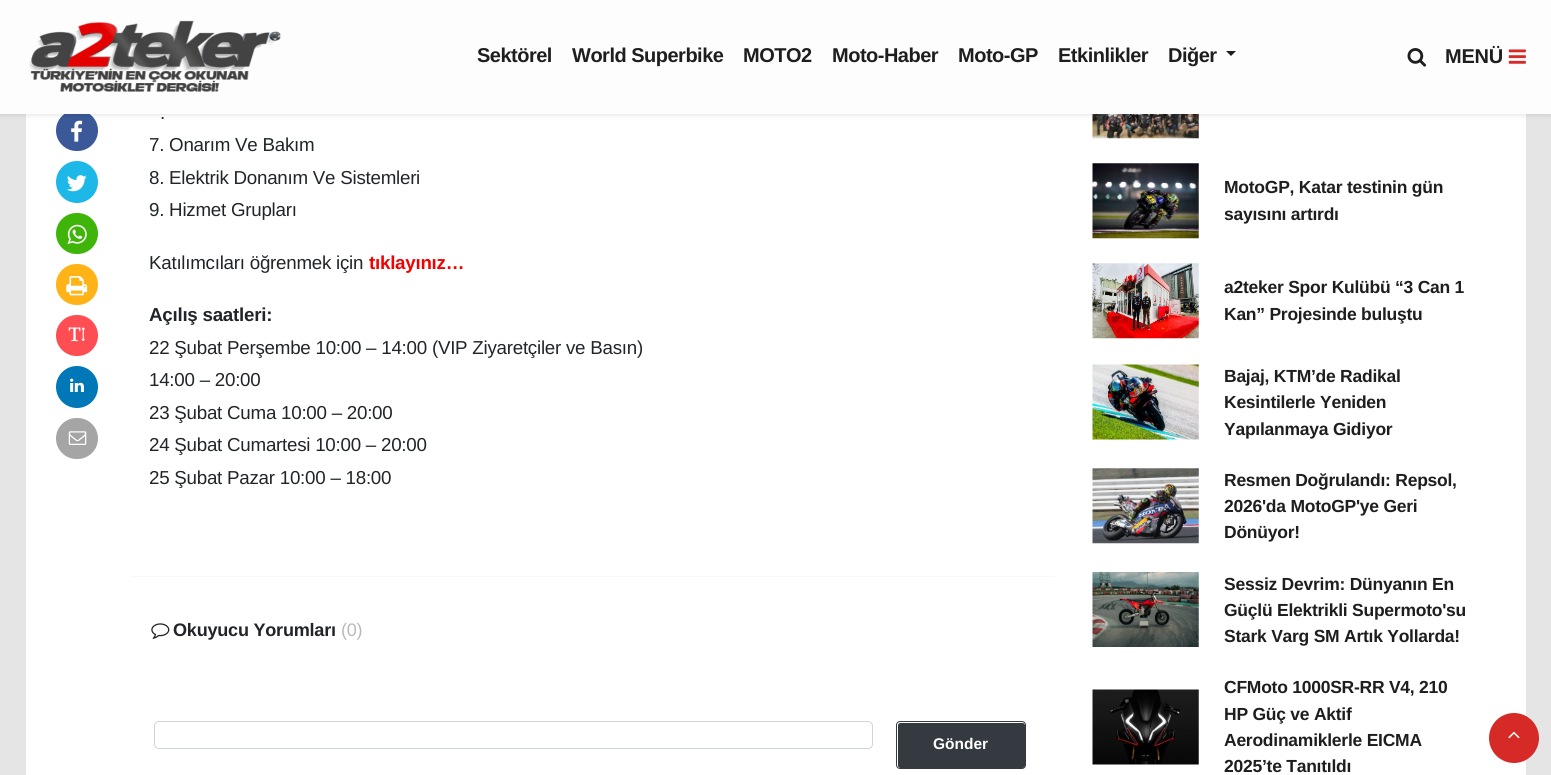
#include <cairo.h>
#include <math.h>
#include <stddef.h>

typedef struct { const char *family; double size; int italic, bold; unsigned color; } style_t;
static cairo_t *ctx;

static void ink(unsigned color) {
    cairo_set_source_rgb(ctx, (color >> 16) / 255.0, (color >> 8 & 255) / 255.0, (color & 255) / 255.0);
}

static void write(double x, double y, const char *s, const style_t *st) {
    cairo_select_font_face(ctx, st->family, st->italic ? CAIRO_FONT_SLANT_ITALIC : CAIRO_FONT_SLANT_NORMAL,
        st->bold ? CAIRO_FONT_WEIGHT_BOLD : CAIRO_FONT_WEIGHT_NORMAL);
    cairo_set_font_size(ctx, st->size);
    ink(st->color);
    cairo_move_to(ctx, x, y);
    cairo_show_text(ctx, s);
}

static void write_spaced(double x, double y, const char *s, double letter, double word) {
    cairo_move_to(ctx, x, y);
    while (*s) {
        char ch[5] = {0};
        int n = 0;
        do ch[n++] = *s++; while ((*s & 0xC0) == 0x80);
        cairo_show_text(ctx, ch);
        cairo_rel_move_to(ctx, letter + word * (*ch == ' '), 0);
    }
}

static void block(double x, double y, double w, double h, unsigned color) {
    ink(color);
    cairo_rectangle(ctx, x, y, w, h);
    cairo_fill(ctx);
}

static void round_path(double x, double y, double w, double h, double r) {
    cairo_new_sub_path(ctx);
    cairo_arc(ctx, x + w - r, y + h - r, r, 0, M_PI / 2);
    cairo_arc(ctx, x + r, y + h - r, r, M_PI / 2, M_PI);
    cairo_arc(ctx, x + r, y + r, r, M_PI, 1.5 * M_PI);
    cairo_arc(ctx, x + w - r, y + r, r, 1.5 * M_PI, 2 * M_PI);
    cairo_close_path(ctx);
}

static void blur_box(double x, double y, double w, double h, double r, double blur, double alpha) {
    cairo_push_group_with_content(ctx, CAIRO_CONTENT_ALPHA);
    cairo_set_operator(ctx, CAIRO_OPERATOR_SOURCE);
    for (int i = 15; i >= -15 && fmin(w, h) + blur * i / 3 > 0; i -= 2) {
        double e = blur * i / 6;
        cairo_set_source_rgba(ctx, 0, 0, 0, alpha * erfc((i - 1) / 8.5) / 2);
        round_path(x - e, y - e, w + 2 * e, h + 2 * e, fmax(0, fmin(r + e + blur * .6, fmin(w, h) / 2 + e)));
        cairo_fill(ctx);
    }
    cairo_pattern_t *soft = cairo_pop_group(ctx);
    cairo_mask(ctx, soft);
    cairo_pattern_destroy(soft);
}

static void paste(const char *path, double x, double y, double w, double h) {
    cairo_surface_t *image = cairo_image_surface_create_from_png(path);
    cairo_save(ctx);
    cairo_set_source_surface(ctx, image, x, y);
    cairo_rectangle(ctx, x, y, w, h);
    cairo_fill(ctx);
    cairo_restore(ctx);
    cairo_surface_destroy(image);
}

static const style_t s1 = {"Liberation Sans", 15.5, 0, 1, 0xffffff};

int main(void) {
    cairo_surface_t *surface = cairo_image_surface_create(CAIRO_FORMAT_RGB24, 1551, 775);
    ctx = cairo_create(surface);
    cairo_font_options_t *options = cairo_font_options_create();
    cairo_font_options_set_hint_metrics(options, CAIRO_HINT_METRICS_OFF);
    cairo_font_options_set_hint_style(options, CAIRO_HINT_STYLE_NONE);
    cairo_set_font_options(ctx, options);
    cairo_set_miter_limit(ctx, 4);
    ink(0xe5e5e5);
    cairo_paint(ctx);
    block(26, 114, 1500, 661, 0xffffff);
    ink(0x3b5998);
    round_path(56, 110, 42, 41, 20.5);
    cairo_fill(ctx);
    paste("pic4.png", 71, 120, 12, 22);
    paste("pic12.png", 1092, 114, 107, 25);
    ink(0x000000);
    blur_box(0, 0, 1551, 114, 0, 3, 0.15);
    block(0, 0, 1551, 114, 0xfdfdfd);
    paste("pic1.png", 29, 20, 252, 72);
    cairo_select_font_face(ctx, "Liberation Sans", CAIRO_FONT_SLANT_NORMAL, CAIRO_FONT_WEIGHT_BOLD);
    cairo_set_font_size(ctx, 20);
    ink(0x1e1e1e);
    write_spaced(477, 62, "Sektörel", -0.5, 0);
    write_spaced(572, 62, "World Superbike", -0.5, 0);
    write_spaced(743, 62, "MOTO2", -0.5, 0);
    write_spaced(832, 62, "Moto-Haber", -0.5, 0);
    write_spaced(958, 62, "Moto-GP", -0.5, 0);
    write_spaced(1058, 62, "Etkinlikler", -0.5, 0);
    write_spaced(1168, 62, "Diğer", -0.5, 0);
    cairo_new_path(ctx);
    cairo_move_to(ctx, 1226, 51);
    cairo_line_to(ctx, 1236, 51);
    cairo_line_to(ctx, 1231, 56);
    cairo_close_path(ctx);
    cairo_fill(ctx);
    paste("pic2.png", 1407, 48, 20, 19);
    write_spaced(1445, 63, "MENÜ", -0.25, 0);
    paste("pic3.png", 1508, 49, 18, 15);
    ink(0x1db7e8);
    cairo_arc(ctx, 77, 182, 21, 0, 2 * M_PI);
    cairo_fill(ctx);
    paste("pic5.png", 67, 175, 20, 17);
    ink(0x3fb509);
    round_path(56, 213, 42, 41, 20.5);
    cairo_fill(ctx);
    paste("pic6.png", 67, 224, 20, 21);
    ink(0xffb316);
    round_path(56, 264, 42, 41, 20.5);
    cairo_fill(ctx);
    paste("pic7.png", 66, 276, 22, 20);
    ink(0xff4d54);
    round_path(56, 315, 42, 41, 20.5);
    cairo_fill(ctx);
    paste("pic8.png", 68, 327, 17, 15);
    ink(0x0077b7);
    cairo_arc(ctx, 77, 387, 21, 0, 2 * M_PI);
    cairo_fill(ctx);
    paste("pic9.png", 70, 378, 14, 14);
    ink(0xa5a5a5);
    round_path(56, 418, 42, 41, 20.5);
    cairo_fill(ctx);
    paste("pic10.png", 68, 431, 19, 14);
    cairo_select_font_face(ctx, "Liberation Sans", CAIRO_FONT_SLANT_NORMAL, CAIRO_FONT_WEIGHT_NORMAL);
    cairo_set_font_size(ctx, 18.75);
    ink(0x212529);
    write_spaced(160, 119, ".", -0.25, 0);
    write_spaced(149, 151, "7. Onarım Ve Bakım", -0.25, 0);
    write_spaced(149, 184, "8. Elektrik Donanım Ve Sistemleri", -0.25, 0);
    write_spaced(149, 216, "9. Hizmet Grupları", -0.25, 0);
    write_spaced(149, 269, "Katılımcıları öğrenmek için", -0.25, 0);
    cairo_select_font_face(ctx, "Liberation Sans", CAIRO_FONT_SLANT_NORMAL, CAIRO_FONT_WEIGHT_BOLD);
    ink(0xf50000);
    write_spaced(369, 269, "tıklayınız…", -0.25, 0);
    ink(0x212529);
    write_spaced(149, 321, "Açılış saatleri:", -0.25, 0);
    cairo_select_font_face(ctx, "Liberation Sans", CAIRO_FONT_SLANT_NORMAL, CAIRO_FONT_WEIGHT_NORMAL);
    write_spaced(149, 354, "22 Şubat Perşembe 10:00 – 14:00 (VIP Ziyaretçiler ve Basın)", -0.25, 0);
    write_spaced(149, 386, "14:00 – 20:00", -0.25, 0);
    write_spaced(149, 419, "23 Şubat Cuma 10:00 – 20:00", -0.25, 0);
    write_spaced(149, 451, "24 Şubat Cumartesi 10:00 – 20:00", -0.25, 0);
    write_spaced(149, 484, "25 Şubat Pazar 10:00 – 18:00", -0.25, 0);
    block(131, 576, 923, 1, 0xf8f9fa);
    paste("pic11.png", 151, 623, 19, 16);
    cairo_select_font_face(ctx, "Liberation Sans", CAIRO_FONT_SLANT_NORMAL, CAIRO_FONT_WEIGHT_BOLD);
    cairo_set_font_size(ctx, 18.1);
    ink(0x212529);
    write_spaced(173, 636, "Okuyucu Yorumları", -0.25, 0);
    cairo_select_font_face(ctx, "Liberation Sans", CAIRO_FONT_SLANT_NORMAL, CAIRO_FONT_WEIGHT_NORMAL);
    ink(0xb9b9b9);
    write_spaced(341, 636, "(0)", -0.25, 0);
    round_path(154.5, 721.5, 718, 27, 4.5);
    ink(0xced4da);
    cairo_set_line_width(ctx, 1);
    cairo_stroke(ctx);
    ink(0x343a40);
    round_path(898, 723, 127, 45, 2.5);
    cairo_fill(ctx);
    round_path(896.5, 721.5, 129, 47, 3.5);
    cairo_stroke(ctx);
    write(933, 749, "Gönder", &s1);
    paste("pic13.png", 1092, 163, 107, 76);
    cairo_set_font_size(ctx, 17.5);
    ink(0x1e1e1e);
    write_spaced(1224, 193, "MotoGP, Katar testinin gün", -0.25, 0);
    write_spaced(1224, 220, "sayısını artırdı", -0.25, 0);
    paste("pic14.png", 1092, 263, 107, 76);
    write_spaced(1224, 293, "a2teker Spor Kulübü “3 Can 1", -0.25, 0);
    write_spaced(1224, 320, "Kan” Projesinde buluştu", -0.25, 0);
    paste("pic15.png", 1092, 364, 107, 76);
    write_spaced(1224, 382, "Bajaj, KTM’de Radikal", -0.25, 0);
    write_spaced(1224, 408, "Kesintilerle Yeniden", -0.25, 0);
    write_spaced(1224, 435, "Yapılanmaya Gidiyor", -0.25, 0);
    paste("pic16.png", 1092, 468, 107, 76);
    write_spaced(1224, 486, "Resmen Doğrulandı: Repsol,", -0.25, 0);
    write_spaced(1224, 512, "2026'da MotoGP'ye Geri", -0.25, 0);
    write_spaced(1224, 538, "Dönüyor!", -0.25, 0);
    paste("pic17.png", 1092, 572, 107, 75);
    write_spaced(1224, 590, "Sessiz Devrim: Dünyanın En", -0.25, 0);
    write_spaced(1224, 616, "Güçlü Elektrikli Supermoto'su", -0.25, 0);
    write_spaced(1224, 642, "Stark Varg SM Artık Yollarda!", -0.25, 0);
    paste("pic18.png", 1092, 689, 107, 76);
    write_spaced(1224, 693, "CFMoto 1000SR-RR V4, 210", -0.25, 0);
    write_spaced(1224, 720, "HP Güç ve Aktif", -0.25, 0);
    write_spaced(1224, 746, "Aerodinamiklerle EICMA", -0.25, 0);
    write_spaced(1224, 772, "2025’te Tanıtıldı", -0.25, 0);
    ink(0xd62a26);
    cairo_new_path(ctx);
    cairo_arc(ctx, 1514, 738, 25, 0, 2 * M_PI);
    cairo_fill(ctx);
    paste("pic19.png", 1508, 731, 12, 8);
    cairo_surface_write_to_png(surface, "screenshot.png");
    cairo_font_options_destroy(options);
    cairo_destroy(ctx);
    cairo_surface_destroy(surface);
    return 0;
}
